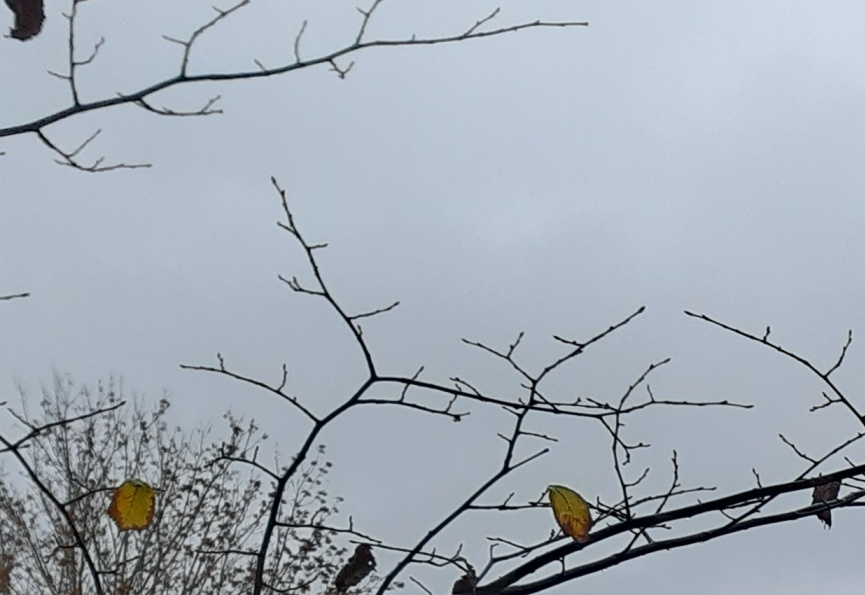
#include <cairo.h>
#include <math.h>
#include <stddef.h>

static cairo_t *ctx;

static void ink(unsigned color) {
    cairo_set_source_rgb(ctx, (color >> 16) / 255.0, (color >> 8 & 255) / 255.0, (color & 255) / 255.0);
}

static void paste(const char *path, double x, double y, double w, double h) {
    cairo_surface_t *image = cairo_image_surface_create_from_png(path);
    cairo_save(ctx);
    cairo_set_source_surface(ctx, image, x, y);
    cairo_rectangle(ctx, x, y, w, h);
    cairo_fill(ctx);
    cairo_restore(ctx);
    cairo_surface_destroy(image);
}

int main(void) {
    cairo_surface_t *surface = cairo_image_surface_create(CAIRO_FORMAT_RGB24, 865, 595);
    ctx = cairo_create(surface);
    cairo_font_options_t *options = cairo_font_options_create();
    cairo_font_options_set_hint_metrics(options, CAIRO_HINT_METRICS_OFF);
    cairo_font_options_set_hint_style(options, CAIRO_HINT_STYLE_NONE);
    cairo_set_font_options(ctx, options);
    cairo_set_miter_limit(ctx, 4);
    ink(0xffffff);
    cairo_paint(ctx);
    paste("pic1.png", 0, 0, 865, 595);
    cairo_surface_write_to_png(surface, "screenshot.png");
    cairo_font_options_destroy(options);
    cairo_destroy(ctx);
    cairo_surface_destroy(surface);
    return 0;
}
